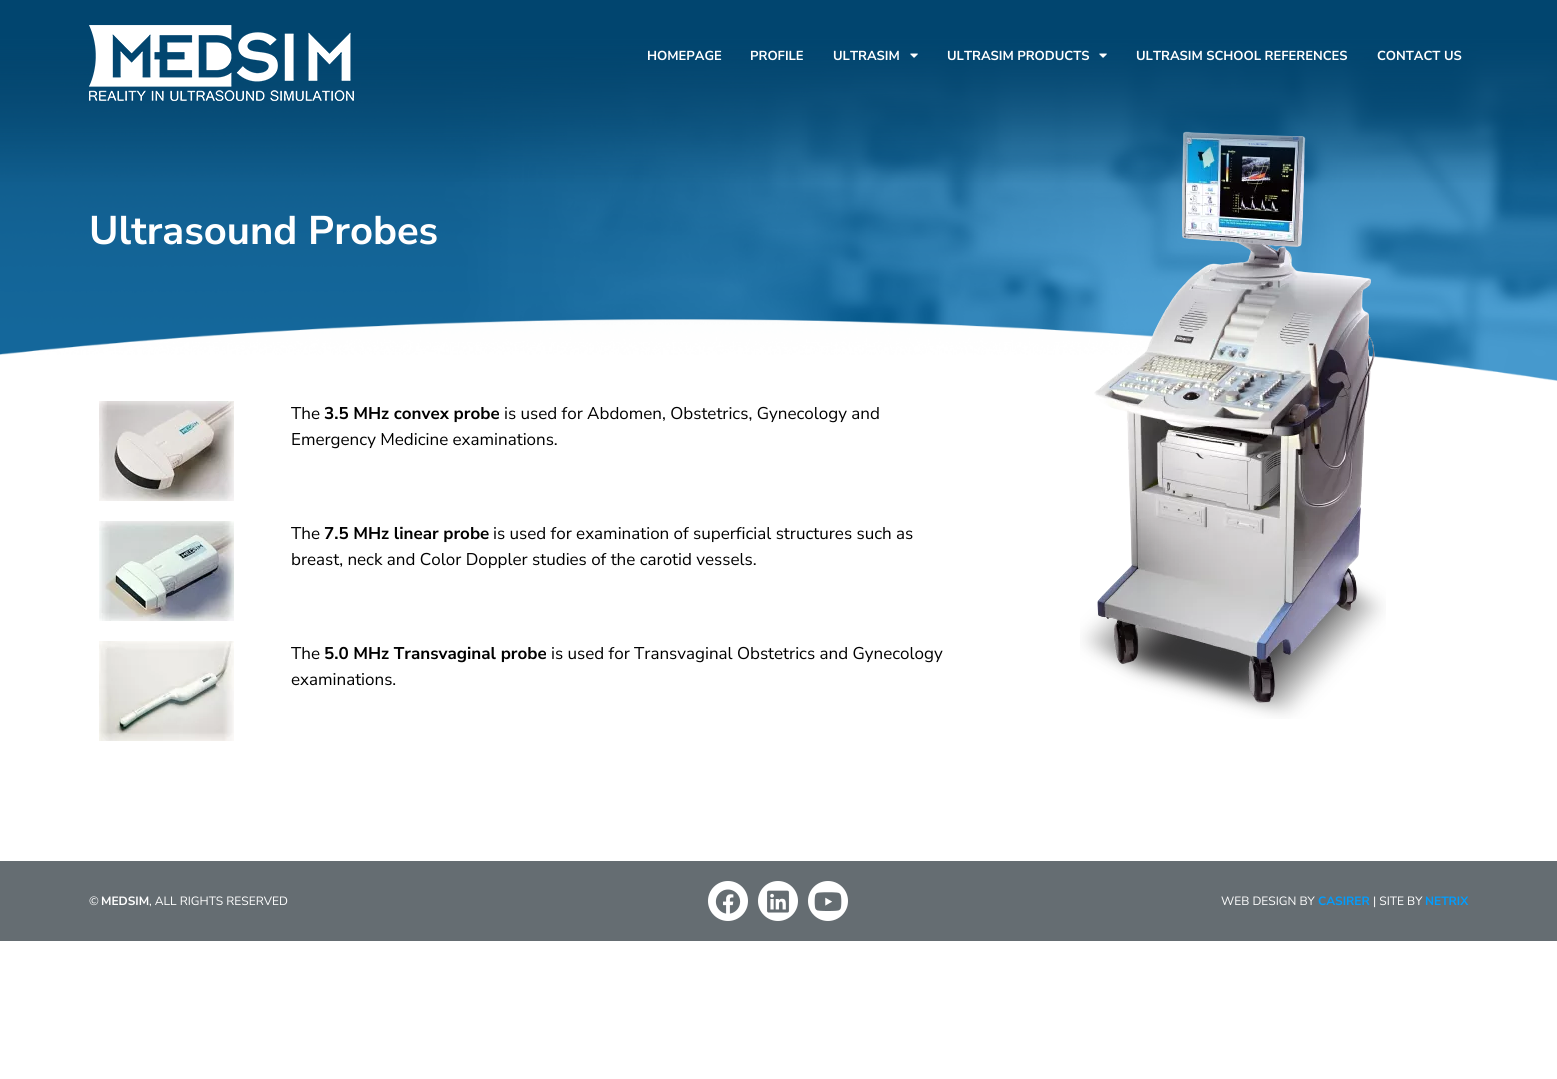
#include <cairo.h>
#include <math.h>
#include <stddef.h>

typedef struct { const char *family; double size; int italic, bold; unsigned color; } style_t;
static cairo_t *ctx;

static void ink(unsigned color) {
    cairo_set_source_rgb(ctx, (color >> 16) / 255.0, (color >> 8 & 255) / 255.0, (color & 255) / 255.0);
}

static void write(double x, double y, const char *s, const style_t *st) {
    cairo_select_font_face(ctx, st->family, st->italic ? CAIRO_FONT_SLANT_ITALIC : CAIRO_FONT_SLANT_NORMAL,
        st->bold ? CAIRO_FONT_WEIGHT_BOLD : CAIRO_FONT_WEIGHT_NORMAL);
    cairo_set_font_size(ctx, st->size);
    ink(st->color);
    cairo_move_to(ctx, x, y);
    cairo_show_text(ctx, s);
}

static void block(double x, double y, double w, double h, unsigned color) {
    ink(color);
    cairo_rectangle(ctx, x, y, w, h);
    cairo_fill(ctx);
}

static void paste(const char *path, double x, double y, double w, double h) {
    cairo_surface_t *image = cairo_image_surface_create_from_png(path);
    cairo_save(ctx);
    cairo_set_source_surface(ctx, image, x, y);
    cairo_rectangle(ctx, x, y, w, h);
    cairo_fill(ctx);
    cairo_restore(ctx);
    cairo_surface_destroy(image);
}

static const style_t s1 = {"Nunito Sans", 13, 0, 1, 0xffffff};
static const style_t s2 = {"Nunito Sans", 40, 0, 1, 0xffffff};
static const style_t s3 = {"Nunito Sans", 17, 0, 0, 0x000000};
static const style_t s4 = {"Nunito Sans", 17, 0, 1, 0x000000};
static const style_t s5 = {"Nunito Sans", 12, 0, 0, 0xffffff};
static const style_t s6 = {"Nunito Sans", 12, 0, 1, 0xffffff};
static const style_t s7 = {"Nunito Sans", 12, 0, 1, 0x009dff};

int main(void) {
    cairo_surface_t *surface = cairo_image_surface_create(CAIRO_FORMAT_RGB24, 1557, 1079);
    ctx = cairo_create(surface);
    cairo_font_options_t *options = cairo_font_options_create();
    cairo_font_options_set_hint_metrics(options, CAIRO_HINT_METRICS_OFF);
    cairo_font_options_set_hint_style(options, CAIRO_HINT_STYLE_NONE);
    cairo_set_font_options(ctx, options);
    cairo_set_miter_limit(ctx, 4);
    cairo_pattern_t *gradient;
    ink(0xffffff);
    cairo_paint(ctx);
    paste("pic4.png", 0, 40, 1557, 341);
    paste("pic8.png", 1080, 131, 306, 588);
    gradient = cairo_pattern_create_linear(779, 0, 779, 186);
    cairo_pattern_add_color_stop_rgba(gradient, 0.21, 0.004, 0.271, 0.435, 1);
    cairo_pattern_add_color_stop_rgba(gradient, 1, 0.004, 0.271, 0.435, 0);
    cairo_set_source(ctx, gradient);
    cairo_pattern_destroy(gradient);
    cairo_rectangle(ctx, 0, 0, 1557, 183);
    cairo_fill(ctx);
    paste("pic1.png", 89, 25, 265, 76);
    write(647, 60, "HOMEPAGE", &s1);
    write(750, 60, "PROFILE", &s1);
    write(833, 60, "ULTRASIM", &s1);
    paste("pic2.png", 910, 53, 8, 5);
    write(947, 60, "ULTRASIM PRODUCTS", &s1);
    paste("pic3.png", 1099, 53, 8, 5);
    write(1136, 60, "ULTRASIM SCHOOL REFERENCES", &s1);
    write(1377, 60, "CONTACT US", &s1);
    write(89, 244, "Ultrasound Probes", &s2);
    paste("pic5.png", 99, 401, 135, 100);
    write(291, 419, "The", &s3);
    write(324, 419, "3.5 MHz convex probe", &s4);
    write(504, 419, "is used for Abdomen, Obstetrics, Gynecology and", &s3);
    write(291, 445, "Emergency Medicine examinations.", &s3);
    paste("pic6.png", 99, 521, 135, 100);
    write(291, 539, "The", &s3);
    write(324, 539, "7.5 MHz linear probe", &s4);
    write(493, 539, "is used for examination of superficial structures such as", &s3);
    write(291, 565, "breast, neck and Color Doppler studies of the carotid vessels.", &s3);
    paste("pic7.png", 99, 641, 135, 100);
    write(291, 659, "The", &s3);
    write(324, 659, "5.0 MHz Transvaginal probe", &s4);
    write(551, 659, "is used for Transvaginal Obstetrics and Gynecology", &s3);
    write(291, 685, "examinations.", &s3);
    block(0, 861, 1557, 80, 0x656d72);
    write(89, 905, "©", &s5);
    write(101, 905, "MEDSIM", &s6);
    write(149, 905, ", ALL RIGHTS RESERVED", &s5);
    cairo_new_path(ctx);
    cairo_arc(ctx, 728, 901, 20, 0, 2 * M_PI);
    cairo_fill(ctx);
    paste("pic9.png", 715, 889, 26, 25);
    cairo_arc(ctx, 778, 901, 20, 0, 2 * M_PI);
    cairo_fill(ctx);
    paste("pic10.png", 767, 890, 22, 23);
    cairo_arc(ctx, 828, 901, 20, 0, 2 * M_PI);
    cairo_fill(ctx);
    paste("pic11.png", 814, 892, 28, 19);
    write(1221, 905, "WEB DESIGN BY", &s5);
    write(1318, 905, "CASIRER", &s7);
    write(1373, 905, "| SITE BY", &s5);
    write(1425, 905, "NETRIX", &s7);
    cairo_surface_write_to_png(surface, "screenshot.png");
    cairo_font_options_destroy(options);
    cairo_destroy(ctx);
    cairo_surface_destroy(surface);
    return 0;
}
